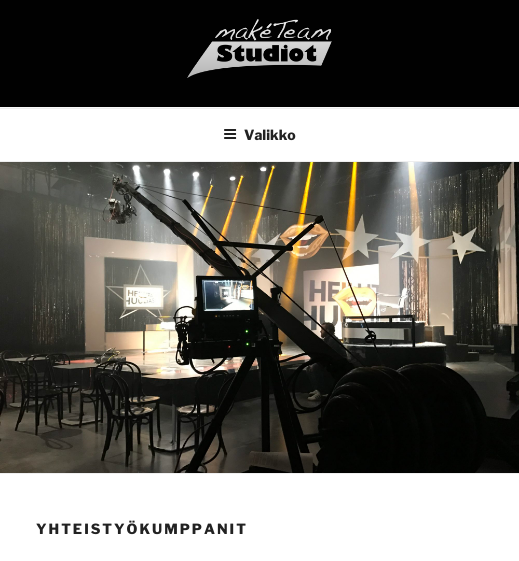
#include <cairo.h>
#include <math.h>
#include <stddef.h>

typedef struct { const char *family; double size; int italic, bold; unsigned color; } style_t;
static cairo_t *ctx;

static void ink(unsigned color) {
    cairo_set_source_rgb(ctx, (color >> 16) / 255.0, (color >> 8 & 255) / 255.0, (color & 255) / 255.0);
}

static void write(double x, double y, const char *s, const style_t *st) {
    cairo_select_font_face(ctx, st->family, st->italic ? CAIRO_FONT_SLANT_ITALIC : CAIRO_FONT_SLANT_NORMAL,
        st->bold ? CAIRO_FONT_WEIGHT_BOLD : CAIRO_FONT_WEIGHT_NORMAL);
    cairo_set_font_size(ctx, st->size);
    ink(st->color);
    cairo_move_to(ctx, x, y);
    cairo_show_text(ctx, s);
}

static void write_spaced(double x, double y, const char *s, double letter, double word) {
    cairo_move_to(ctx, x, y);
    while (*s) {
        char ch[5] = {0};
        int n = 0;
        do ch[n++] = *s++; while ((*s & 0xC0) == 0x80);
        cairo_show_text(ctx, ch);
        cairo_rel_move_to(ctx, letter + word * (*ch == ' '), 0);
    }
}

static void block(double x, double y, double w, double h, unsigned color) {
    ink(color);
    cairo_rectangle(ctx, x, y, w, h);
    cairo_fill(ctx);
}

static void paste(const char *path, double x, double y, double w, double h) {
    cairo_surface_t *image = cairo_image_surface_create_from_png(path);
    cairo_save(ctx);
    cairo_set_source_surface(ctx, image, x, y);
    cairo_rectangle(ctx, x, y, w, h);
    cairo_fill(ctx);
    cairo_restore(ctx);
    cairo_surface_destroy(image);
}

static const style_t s1 = {"Libre Franklin Thin", 14, 0, 0, 0x222222};

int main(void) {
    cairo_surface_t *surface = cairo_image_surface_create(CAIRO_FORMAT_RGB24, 519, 561);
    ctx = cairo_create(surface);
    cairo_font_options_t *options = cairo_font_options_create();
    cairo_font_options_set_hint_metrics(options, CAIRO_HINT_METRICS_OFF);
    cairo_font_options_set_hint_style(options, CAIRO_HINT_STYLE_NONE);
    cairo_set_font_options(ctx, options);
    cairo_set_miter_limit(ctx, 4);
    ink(0xffffff);
    cairo_paint(ctx);
    block(0, 107, 519, 1, 0xfafafa);
    paste("pic1.png", 0, 0, 519, 107);
    block(0, 108, 519, 1, 0xeeeeee);
    block(0, 161, 519, 1, 0xeeeeee);
    paste("pic2.png", 224, 129, 13, 10);
    write(244, 140, "Valikko", &s1);
    block(0, 473, 519, 1, 0xeeeeee);
    paste("pic3.png", 0, 162, 519, 311);
    ink(0x222222);
    write_spaced(36, 534, "YHTEISTYÖKUMPPANIT", 2, 0);
    cairo_surface_write_to_png(surface, "screenshot.png");
    cairo_font_options_destroy(options);
    cairo_destroy(ctx);
    cairo_surface_destroy(surface);
    return 0;
}
